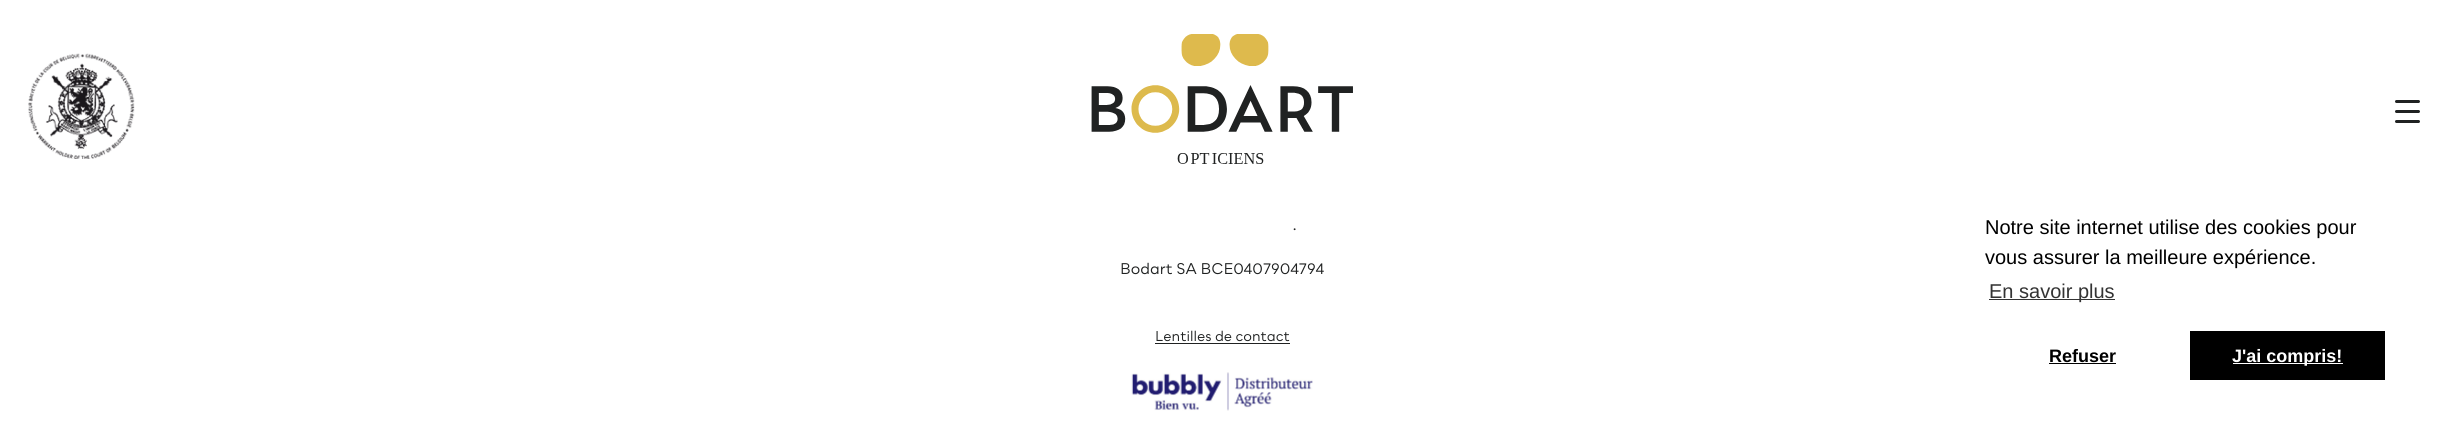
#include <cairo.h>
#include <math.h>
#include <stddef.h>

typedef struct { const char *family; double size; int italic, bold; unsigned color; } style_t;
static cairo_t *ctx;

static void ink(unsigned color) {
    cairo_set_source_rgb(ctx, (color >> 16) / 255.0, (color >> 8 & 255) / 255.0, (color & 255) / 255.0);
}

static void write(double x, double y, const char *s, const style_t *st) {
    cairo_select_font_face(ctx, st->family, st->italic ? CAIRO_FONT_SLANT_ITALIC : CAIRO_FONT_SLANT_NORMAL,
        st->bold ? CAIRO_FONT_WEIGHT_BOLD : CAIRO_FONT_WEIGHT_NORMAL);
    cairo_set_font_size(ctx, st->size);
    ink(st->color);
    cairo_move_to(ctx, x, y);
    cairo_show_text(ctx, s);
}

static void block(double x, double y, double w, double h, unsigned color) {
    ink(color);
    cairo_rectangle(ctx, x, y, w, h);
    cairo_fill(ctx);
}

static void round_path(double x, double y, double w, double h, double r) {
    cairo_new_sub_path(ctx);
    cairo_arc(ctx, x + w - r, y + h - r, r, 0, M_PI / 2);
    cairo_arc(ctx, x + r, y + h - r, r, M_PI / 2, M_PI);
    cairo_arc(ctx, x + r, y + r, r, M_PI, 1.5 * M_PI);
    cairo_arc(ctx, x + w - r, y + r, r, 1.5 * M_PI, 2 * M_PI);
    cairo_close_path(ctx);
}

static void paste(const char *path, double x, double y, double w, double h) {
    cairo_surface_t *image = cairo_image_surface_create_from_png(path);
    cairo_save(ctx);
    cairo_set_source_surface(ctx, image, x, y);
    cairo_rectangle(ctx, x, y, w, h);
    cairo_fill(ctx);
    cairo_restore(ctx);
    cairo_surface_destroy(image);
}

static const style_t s1 = {"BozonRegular", 15, 0, 0, 0x202222};
static const style_t s2 = {"BozonRegular", 13.75, 0, 0, 0x202222};
static const style_t s3 = {"Liberation Sans", 20, 0, 0, 0x000000};
static const style_t s4 = {"Liberation Sans", 20, 0, 0, 0x333333};
static const style_t s5 = {"Liberation Sans", 18, 0, 1, 0x000000};
static const style_t s6 = {"Liberation Sans", 18, 0, 1, 0xffffff};

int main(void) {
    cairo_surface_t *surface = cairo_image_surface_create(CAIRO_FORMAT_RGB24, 2444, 439);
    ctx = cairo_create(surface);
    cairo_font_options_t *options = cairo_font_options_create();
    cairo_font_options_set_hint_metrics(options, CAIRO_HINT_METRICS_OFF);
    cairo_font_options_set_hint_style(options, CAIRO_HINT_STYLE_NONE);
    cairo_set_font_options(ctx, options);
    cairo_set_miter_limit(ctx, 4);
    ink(0xffffff);
    cairo_paint(ctx);
    paste("pic1.png", 28, 53, 107, 106);
    paste("pic2.png", 1181, 34, 88, 32);
    paste("pic3.png", 1091, 85, 262, 79);
    ink(0x202222);
    round_path(2395, 100, 25, 3, 1.5);
    cairo_fill(ctx);
    round_path(2395, 110, 25, 3, 1.5);
    cairo_fill(ctx);
    round_path(2395, 120, 25, 3, 1.5);
    cairo_fill(ctx);
    write(1292, 230, ".", &s1);
    write(1120, 274, "Bodart SA BCE0407904794", &s1);
    write(1155, 341, "Lentilles de contact", &s2);
    block(1155, 343, 135, 1, 0x202222);
    paste("pic4.png", 1131, 372, 182, 39);
    write(1985, 234, "Notre site internet utilise des cookies pour", &s3);
    write(1985, 264, "vous assurer la meilleure expérience.", &s3);
    block(1989, 299, 126, 1, 0x333333);
    write(1989, 298, "En savoir plus", &s4);
    write(2049, 362, "Refuser", &s5);
    block(2049, 363, 67, 1, 0x000000);
    block(2190, 331, 195, 49, 0x000000);
    block(2233, 363, 110, 1, 0xffffff);
    write(2232, 362, "J'ai compris!", &s6);
    cairo_surface_write_to_png(surface, "screenshot.png");
    cairo_font_options_destroy(options);
    cairo_destroy(ctx);
    cairo_surface_destroy(surface);
    return 0;
}
